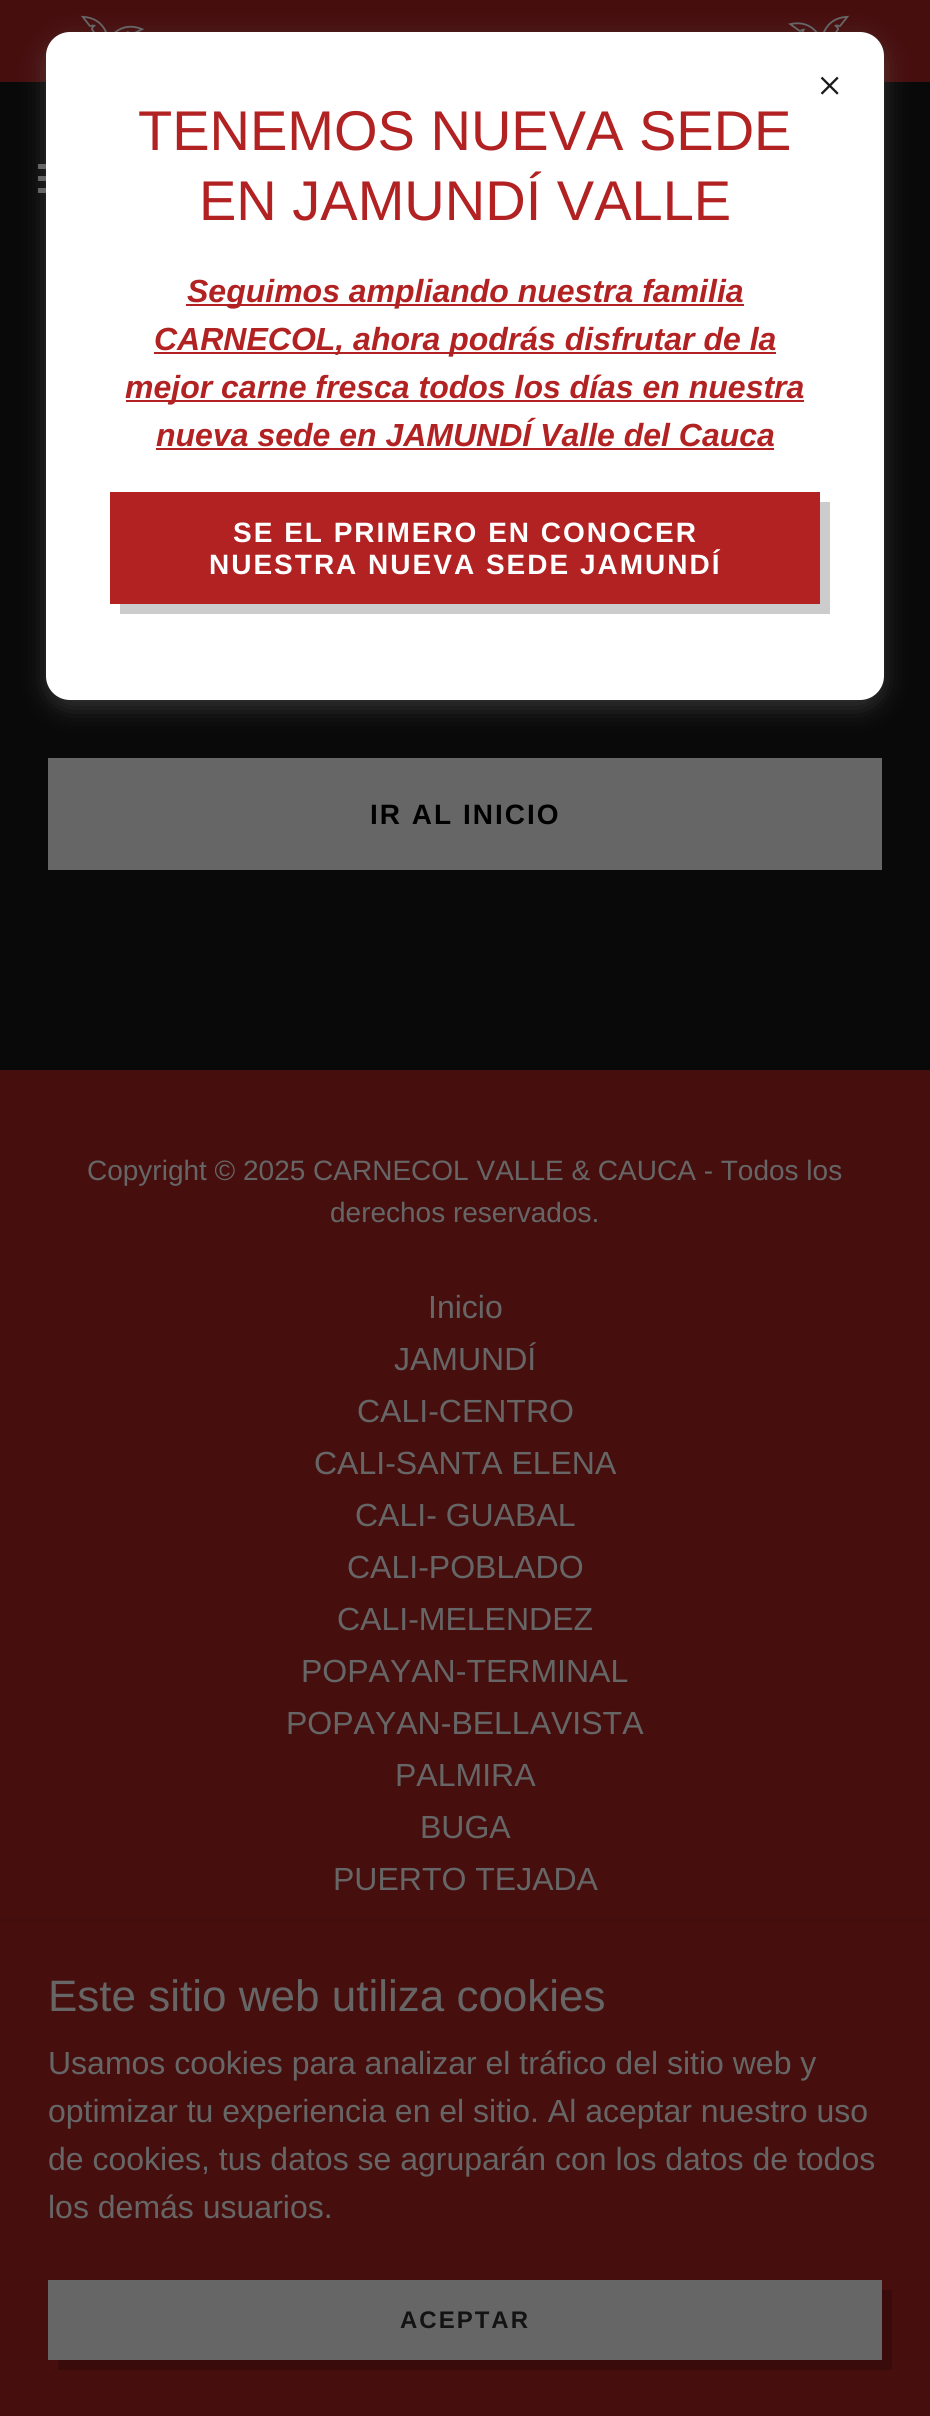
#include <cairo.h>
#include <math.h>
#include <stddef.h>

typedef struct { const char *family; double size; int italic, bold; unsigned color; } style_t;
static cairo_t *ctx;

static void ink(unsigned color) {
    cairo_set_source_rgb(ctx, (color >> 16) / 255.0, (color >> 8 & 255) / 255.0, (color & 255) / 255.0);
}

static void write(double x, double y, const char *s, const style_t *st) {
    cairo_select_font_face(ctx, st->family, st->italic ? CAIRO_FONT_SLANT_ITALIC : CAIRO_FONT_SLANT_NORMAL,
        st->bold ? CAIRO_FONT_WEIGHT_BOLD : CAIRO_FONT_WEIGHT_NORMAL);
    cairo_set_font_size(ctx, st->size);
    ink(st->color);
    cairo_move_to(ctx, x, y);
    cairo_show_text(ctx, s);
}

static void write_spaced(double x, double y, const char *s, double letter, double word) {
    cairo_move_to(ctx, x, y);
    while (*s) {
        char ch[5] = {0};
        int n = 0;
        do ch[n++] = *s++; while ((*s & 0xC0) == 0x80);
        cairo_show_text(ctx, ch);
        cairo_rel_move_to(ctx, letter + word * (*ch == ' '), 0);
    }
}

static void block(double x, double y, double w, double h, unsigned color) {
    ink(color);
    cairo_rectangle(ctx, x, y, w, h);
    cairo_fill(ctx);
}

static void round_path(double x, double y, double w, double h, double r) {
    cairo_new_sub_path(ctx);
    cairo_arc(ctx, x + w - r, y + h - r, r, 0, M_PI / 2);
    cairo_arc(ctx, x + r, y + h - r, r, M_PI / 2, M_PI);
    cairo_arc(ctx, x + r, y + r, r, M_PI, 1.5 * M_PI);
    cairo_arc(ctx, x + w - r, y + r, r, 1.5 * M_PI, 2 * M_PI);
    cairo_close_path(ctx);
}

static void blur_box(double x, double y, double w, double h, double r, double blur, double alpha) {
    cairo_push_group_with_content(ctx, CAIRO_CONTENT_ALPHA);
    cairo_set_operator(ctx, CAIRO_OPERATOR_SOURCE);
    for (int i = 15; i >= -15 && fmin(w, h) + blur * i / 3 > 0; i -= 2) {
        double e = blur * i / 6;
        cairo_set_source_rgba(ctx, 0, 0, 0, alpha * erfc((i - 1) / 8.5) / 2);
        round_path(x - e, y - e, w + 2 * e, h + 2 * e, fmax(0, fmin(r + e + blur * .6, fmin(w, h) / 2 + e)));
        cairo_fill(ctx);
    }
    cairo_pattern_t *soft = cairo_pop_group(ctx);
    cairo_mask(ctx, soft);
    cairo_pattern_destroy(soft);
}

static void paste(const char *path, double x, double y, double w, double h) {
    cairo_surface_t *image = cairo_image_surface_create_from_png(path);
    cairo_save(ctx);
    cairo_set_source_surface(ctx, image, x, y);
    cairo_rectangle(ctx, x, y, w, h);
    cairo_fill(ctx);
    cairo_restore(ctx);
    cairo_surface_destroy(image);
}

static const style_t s1 = {"Liberation Sans", 56, 0, 0, 0xb22222};
static const style_t s2 = {"Liberation Sans", 32, 1, 1, 0xb22222};
static const style_t s3 = {"Liberation Sans", 28, 0, 0, 0x666666};
static const style_t s4 = {"Liberation Sans", 32, 0, 0, 0x666666};
static const style_t s5 = {"Liberation Sans", 44, 0, 0, 0x666666};

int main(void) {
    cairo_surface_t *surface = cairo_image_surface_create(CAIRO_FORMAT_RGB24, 930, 2416);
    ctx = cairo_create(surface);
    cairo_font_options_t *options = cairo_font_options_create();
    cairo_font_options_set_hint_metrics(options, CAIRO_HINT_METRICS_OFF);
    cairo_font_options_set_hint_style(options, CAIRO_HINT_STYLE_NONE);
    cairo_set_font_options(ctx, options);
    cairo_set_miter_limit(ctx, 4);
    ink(0x470e0e);
    cairo_paint(ctx);
    block(0, 82, 930, 988, 0x090909);
    paste("pic1.png", 80, 15, 65, 17);
    paste("pic2.png", 788, 15, 62, 17);
    block(38, 164, 8, 5, 0x636363);
    block(38, 176, 8, 5, 0x636363);
    block(38, 188, 8, 5, 0x636363);
    ink(0x757575);
    blur_box(46, 40, 838, 668, 24, 12, 0.4);
    ink(0xffffff);
    round_path(46, 32, 838, 668, 24);
    cairo_fill(ctx);
    paste("pic3.png", 820, 76, 19, 19);
    write(138, 150, "TENEMOS NUEVA SEDE", &s1);
    write(199, 220, "EN JAMUNDÍ VALLE", &s1);
    block(186, 304, 558, 2, 0xb22222);
    write(187, 302, "Seguimos ampliando nuestra familia", &s2);
    block(154, 352, 622, 2, 0xb22222);
    write(154, 350, "CARNECOL, ahora podrás disfrutar de la", &s2);
    block(126, 400, 678, 2, 0xb22222);
    write(125, 398, "mejor carne fresca todos los días en nuestra", &s2);
    write(156, 446, "nueva sede en JAMUNDÍ Valle del Cauca", &s2);
    block(156, 448, 618, 2, 0xb22222);
    block(110, 492, 710, 112, 0xb22222);
    ink(0xcccccc);
    cairo_new_path(ctx);
    cairo_move_to(ctx, 120, 604);
    cairo_line_to(ctx, 120, 614);
    cairo_line_to(ctx, 830, 614);
    cairo_line_to(ctx, 830, 502);
    cairo_line_to(ctx, 820, 502);
    cairo_line_to(ctx, 820, 604);
    cairo_close_path(ctx);
    cairo_fill(ctx);
    cairo_select_font_face(ctx, "Liberation Sans", CAIRO_FONT_SLANT_NORMAL, CAIRO_FONT_WEIGHT_BOLD);
    cairo_set_font_size(ctx, 28);
    ink(0xffffff);
    write_spaced(233, 542, "SE EL PRIMERO EN CONOCER", 2, 0);
    write_spaced(209, 574, "NUESTRA NUEVA SEDE JAMUNDÍ", 2, 0);
    block(48, 758, 834, 112, 0x666666);
    ink(0x000000);
    write_spaced(370, 824, "IR AL INICIO", 2, 0);
    write(87, 1180, "Copyright © 2025 CARNECOL VALLE & CAUCA - Todos los", &s3);
    write(330, 1222, "derechos reservados.", &s3);
    write(428, 1318, "Inicio", &s4);
    write(394, 1370, "JAMUNDÍ", &s4);
    write(357, 1422, "CALI-CENTRO", &s4);
    write(314, 1474, "CALI-SANTA ELENA", &s4);
    write(355, 1526, "CALI- GUABAL", &s4);
    write(347, 1578, "CALI-POBLADO", &s4);
    write(337, 1630, "CALI-MELENDEZ", &s4);
    write(301, 1682, "POPAYAN-TERMINAL", &s4);
    write(286, 1734, "POPAYAN-BELLAVISTA", &s4);
    write(395, 1786, "PALMIRA", &s4);
    write(420, 1838, "BUGA", &s4);
    write(333, 1890, "PUERTO TEJADA", &s4);
    ink(0x000000);
    blur_box(0, 1926, 930, 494, 0, 6, 0.3);
    block(0, 1922, 930, 494, 0x470e0e);
    write(48, 2011, "Este sitio web utiliza cookies", &s5);
    write(48, 2074, "Usamos cookies para analizar el tráfico del sitio web y", &s4);
    write(48, 2122, "optimizar tu experiencia en el sitio. Al aceptar nuestro uso", &s4);
    write(48, 2170, "de cookies, tus datos se agruparán con los datos de todos", &s4);
    write(48, 2218, "los demás usuarios.", &s4);
    block(48, 2280, 834, 80, 0x666666);
    ink(0x390b0b);
    cairo_new_path(ctx);
    cairo_move_to(ctx, 58, 2360);
    cairo_line_to(ctx, 58, 2370);
    cairo_line_to(ctx, 892, 2370);
    cairo_line_to(ctx, 892, 2290);
    cairo_line_to(ctx, 882, 2290);
    cairo_line_to(ctx, 882, 2360);
    cairo_close_path(ctx);
    cairo_fill(ctx);
    cairo_select_font_face(ctx, "Liberation Sans", CAIRO_FONT_SLANT_NORMAL, CAIRO_FONT_WEIGHT_BOLD);
    cairo_set_font_size(ctx, 24);
    ink(0x131313);
    write_spaced(400, 2328, "ACEPTAR", 2, 0);
    cairo_surface_write_to_png(surface, "screenshot.png");
    cairo_font_options_destroy(options);
    cairo_destroy(ctx);
    cairo_surface_destroy(surface);
    return 0;
}
